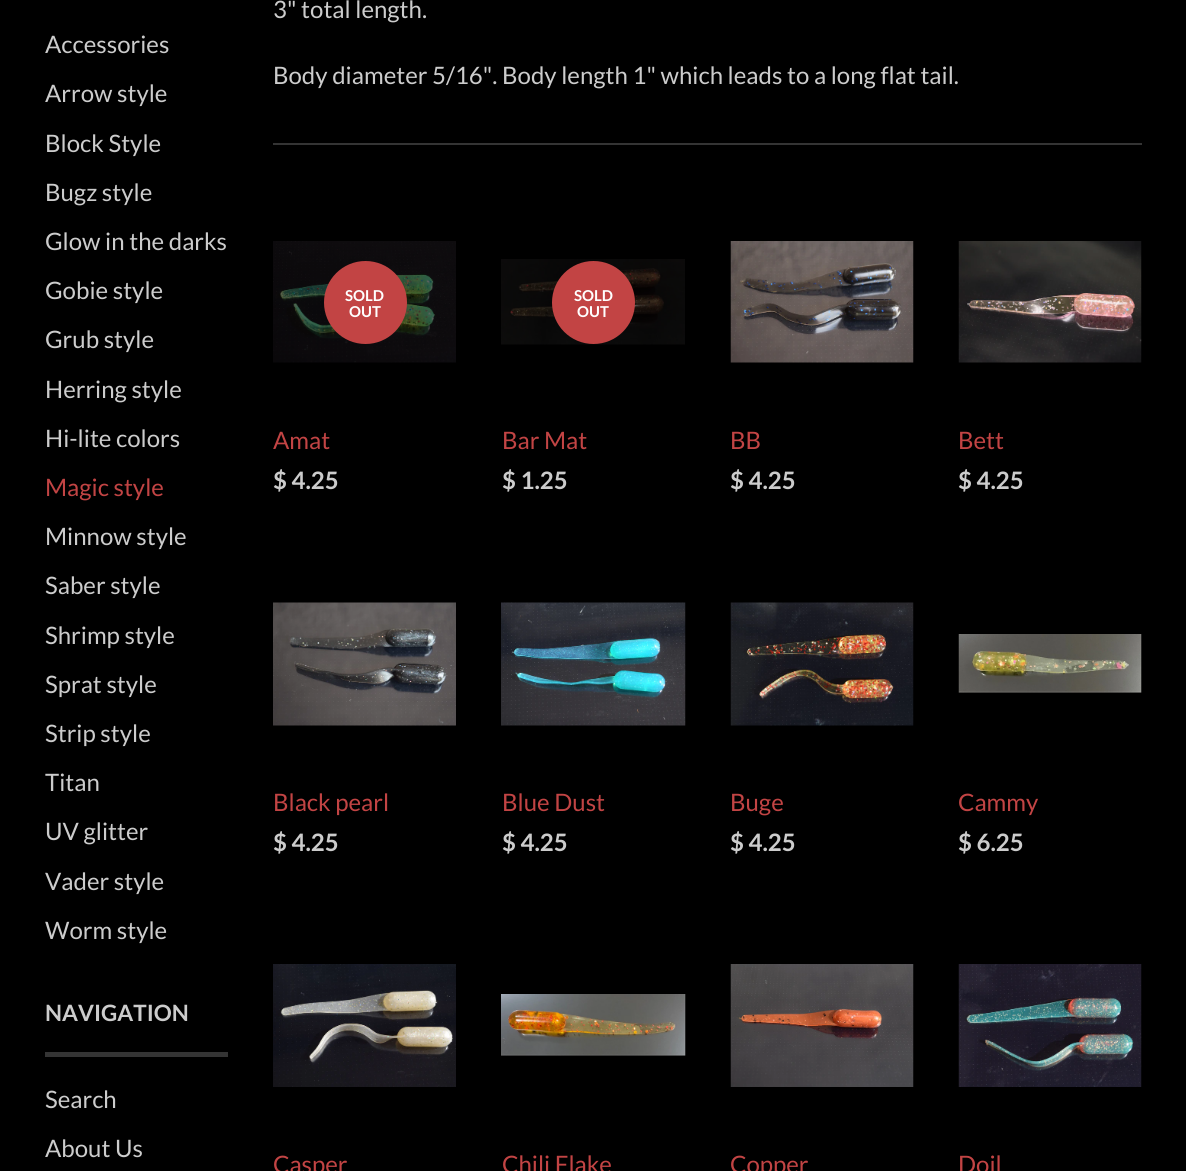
#include <cairo.h>
#include <math.h>
#include <stddef.h>

typedef struct { const char *family; double size; int italic, bold; unsigned color; } style_t;
static cairo_t *ctx;

static void ink(unsigned color) {
    cairo_set_source_rgb(ctx, (color >> 16) / 255.0, (color >> 8 & 255) / 255.0, (color & 255) / 255.0);
}

static void write(double x, double y, const char *s, const style_t *st) {
    cairo_select_font_face(ctx, st->family, st->italic ? CAIRO_FONT_SLANT_ITALIC : CAIRO_FONT_SLANT_NORMAL,
        st->bold ? CAIRO_FONT_WEIGHT_BOLD : CAIRO_FONT_WEIGHT_NORMAL);
    cairo_set_font_size(ctx, st->size);
    ink(st->color);
    cairo_move_to(ctx, x, y);
    cairo_show_text(ctx, s);
}

static void block(double x, double y, double w, double h, unsigned color) {
    ink(color);
    cairo_rectangle(ctx, x, y, w, h);
    cairo_fill(ctx);
}

static void paste(const char *path, double x, double y, double w, double h) {
    cairo_surface_t *image = cairo_image_surface_create_from_png(path);
    cairo_save(ctx);
    cairo_set_source_surface(ctx, image, x, y);
    cairo_rectangle(ctx, x, y, w, h);
    cairo_fill(ctx);
    cairo_restore(ctx);
    cairo_surface_destroy(image);
}

static const style_t s1 = {"Lato", 24, 0, 0, 0xcccccc};
static const style_t s2 = {"Lato", 24, 0, 0, 0xc24444};
static const style_t s3 = {"Lato", 22.5, 0, 1, 0xcccccc};
static const style_t s4 = {"Lato", 15, 0, 1, 0xffffff};
static const style_t s5 = {"Lato", 24, 0, 1, 0xcccccc};

int main(void) {
    cairo_surface_t *surface = cairo_image_surface_create(CAIRO_FORMAT_RGB24, 1186, 1171);
    ctx = cairo_create(surface);
    cairo_font_options_t *options = cairo_font_options_create();
    cairo_font_options_set_hint_metrics(options, CAIRO_HINT_METRICS_OFF);
    cairo_font_options_set_hint_style(options, CAIRO_HINT_STYLE_NONE);
    cairo_set_font_options(ctx, options);
    cairo_set_miter_limit(ctx, 4);
    ink(0x000000);
    cairo_paint(ctx);
    write(45, 53, "Accessories", &s1);
    write(45, 102, "Arrow style", &s1);
    write(45, 152, "Block Style", &s1);
    write(45, 201, "Bugz style", &s1);
    write(45, 250, "Glow in the darks", &s1);
    write(45, 299, "Gobie style", &s1);
    write(45, 348, "Grub style", &s1);
    write(45, 398, "Herring style", &s1);
    write(45, 447, "Hi-lite colors", &s1);
    write(45, 496, "Magic style", &s2);
    write(45, 545, "Minnow style", &s1);
    write(45, 594, "Saber style", &s1);
    write(45, 644, "Shrimp style", &s1);
    write(45, 693, "Sprat style", &s1);
    write(45, 742, "Strip style", &s1);
    write(45, 791, "Titan", &s1);
    write(45, 840, "UV glitter", &s1);
    write(45, 890, "Vader style", &s1);
    write(45, 939, "Worm style", &s1);
    block(45, 1052, 183, 5, 0x343434);
    write(45, 1021, "NAVIGATION", &s3);
    write(45, 1108, "Search", &s1);
    write(45, 1157, "About Us", &s1);
    write(273, 18, "3\" total length.", &s1);
    write(273, 84, "Body diameter 5/16\". Body length 1\" which leads to a long flat tail.", &s1);
    block(273, 143, 869, 2, 0x343434);
    paste("pic1.png", 273, 241, 183, 122);
    ink(0xc24444);
    cairo_arc(ctx, 365.5, 302.5, 41.5, 0, 2 * M_PI);
    cairo_fill(ctx);
    write(345, 301, "SOLD", &s4);
    write(349, 317, "OUT", &s4);
    write(273, 449, "Amat", &s2);
    write(273, 489, "$ 4.25", &s5);
    paste("pic2.png", 501, 259, 184, 86);
    ink(0xc24444);
    cairo_arc(ctx, 593.5, 302.5, 41.5, 0, 2 * M_PI);
    cairo_fill(ctx);
    write(574, 301, "SOLD", &s4);
    write(577, 317, "OUT", &s4);
    write(502, 449, "Bar Mat", &s2);
    write(502, 489, "$ 1.25", &s5);
    paste("pic3.png", 730, 241, 184, 122);
    write(730, 449, "BB", &s2);
    write(730, 489, "$ 4.25", &s5);
    paste("pic4.png", 958, 241, 184, 122);
    write(958, 449, "Bett", &s2);
    write(958, 489, "$ 4.25", &s5);
    paste("pic5.png", 273, 602, 183, 124);
    write(273, 811, "Black pearl", &s2);
    write(273, 851, "$ 4.25", &s5);
    paste("pic6.png", 501, 602, 185, 124);
    write(502, 811, "Blue Dust", &s2);
    write(502, 851, "$ 4.25", &s5);
    paste("pic7.png", 730, 602, 184, 124);
    write(730, 811, "Buge", &s2);
    write(730, 851, "$ 4.25", &s5);
    paste("pic8.png", 958, 634, 184, 59);
    write(958, 811, "Cammy", &s2);
    write(958, 851, "$ 6.25", &s5);
    paste("pic9.png", 273, 964, 183, 123);
    write(273, 1173, "Casper", &s2);
    paste("pic10.png", 501, 994, 185, 62);
    write(502, 1173, "Chili Flake", &s2);
    paste("pic11.png", 730, 964, 184, 123);
    write(730, 1173, "Copper", &s2);
    paste("pic12.png", 958, 964, 184, 123);
    write(958, 1173, "Doil", &s2);
    cairo_surface_write_to_png(surface, "screenshot.png");
    cairo_font_options_destroy(options);
    cairo_destroy(ctx);
    cairo_surface_destroy(surface);
    return 0;
}
